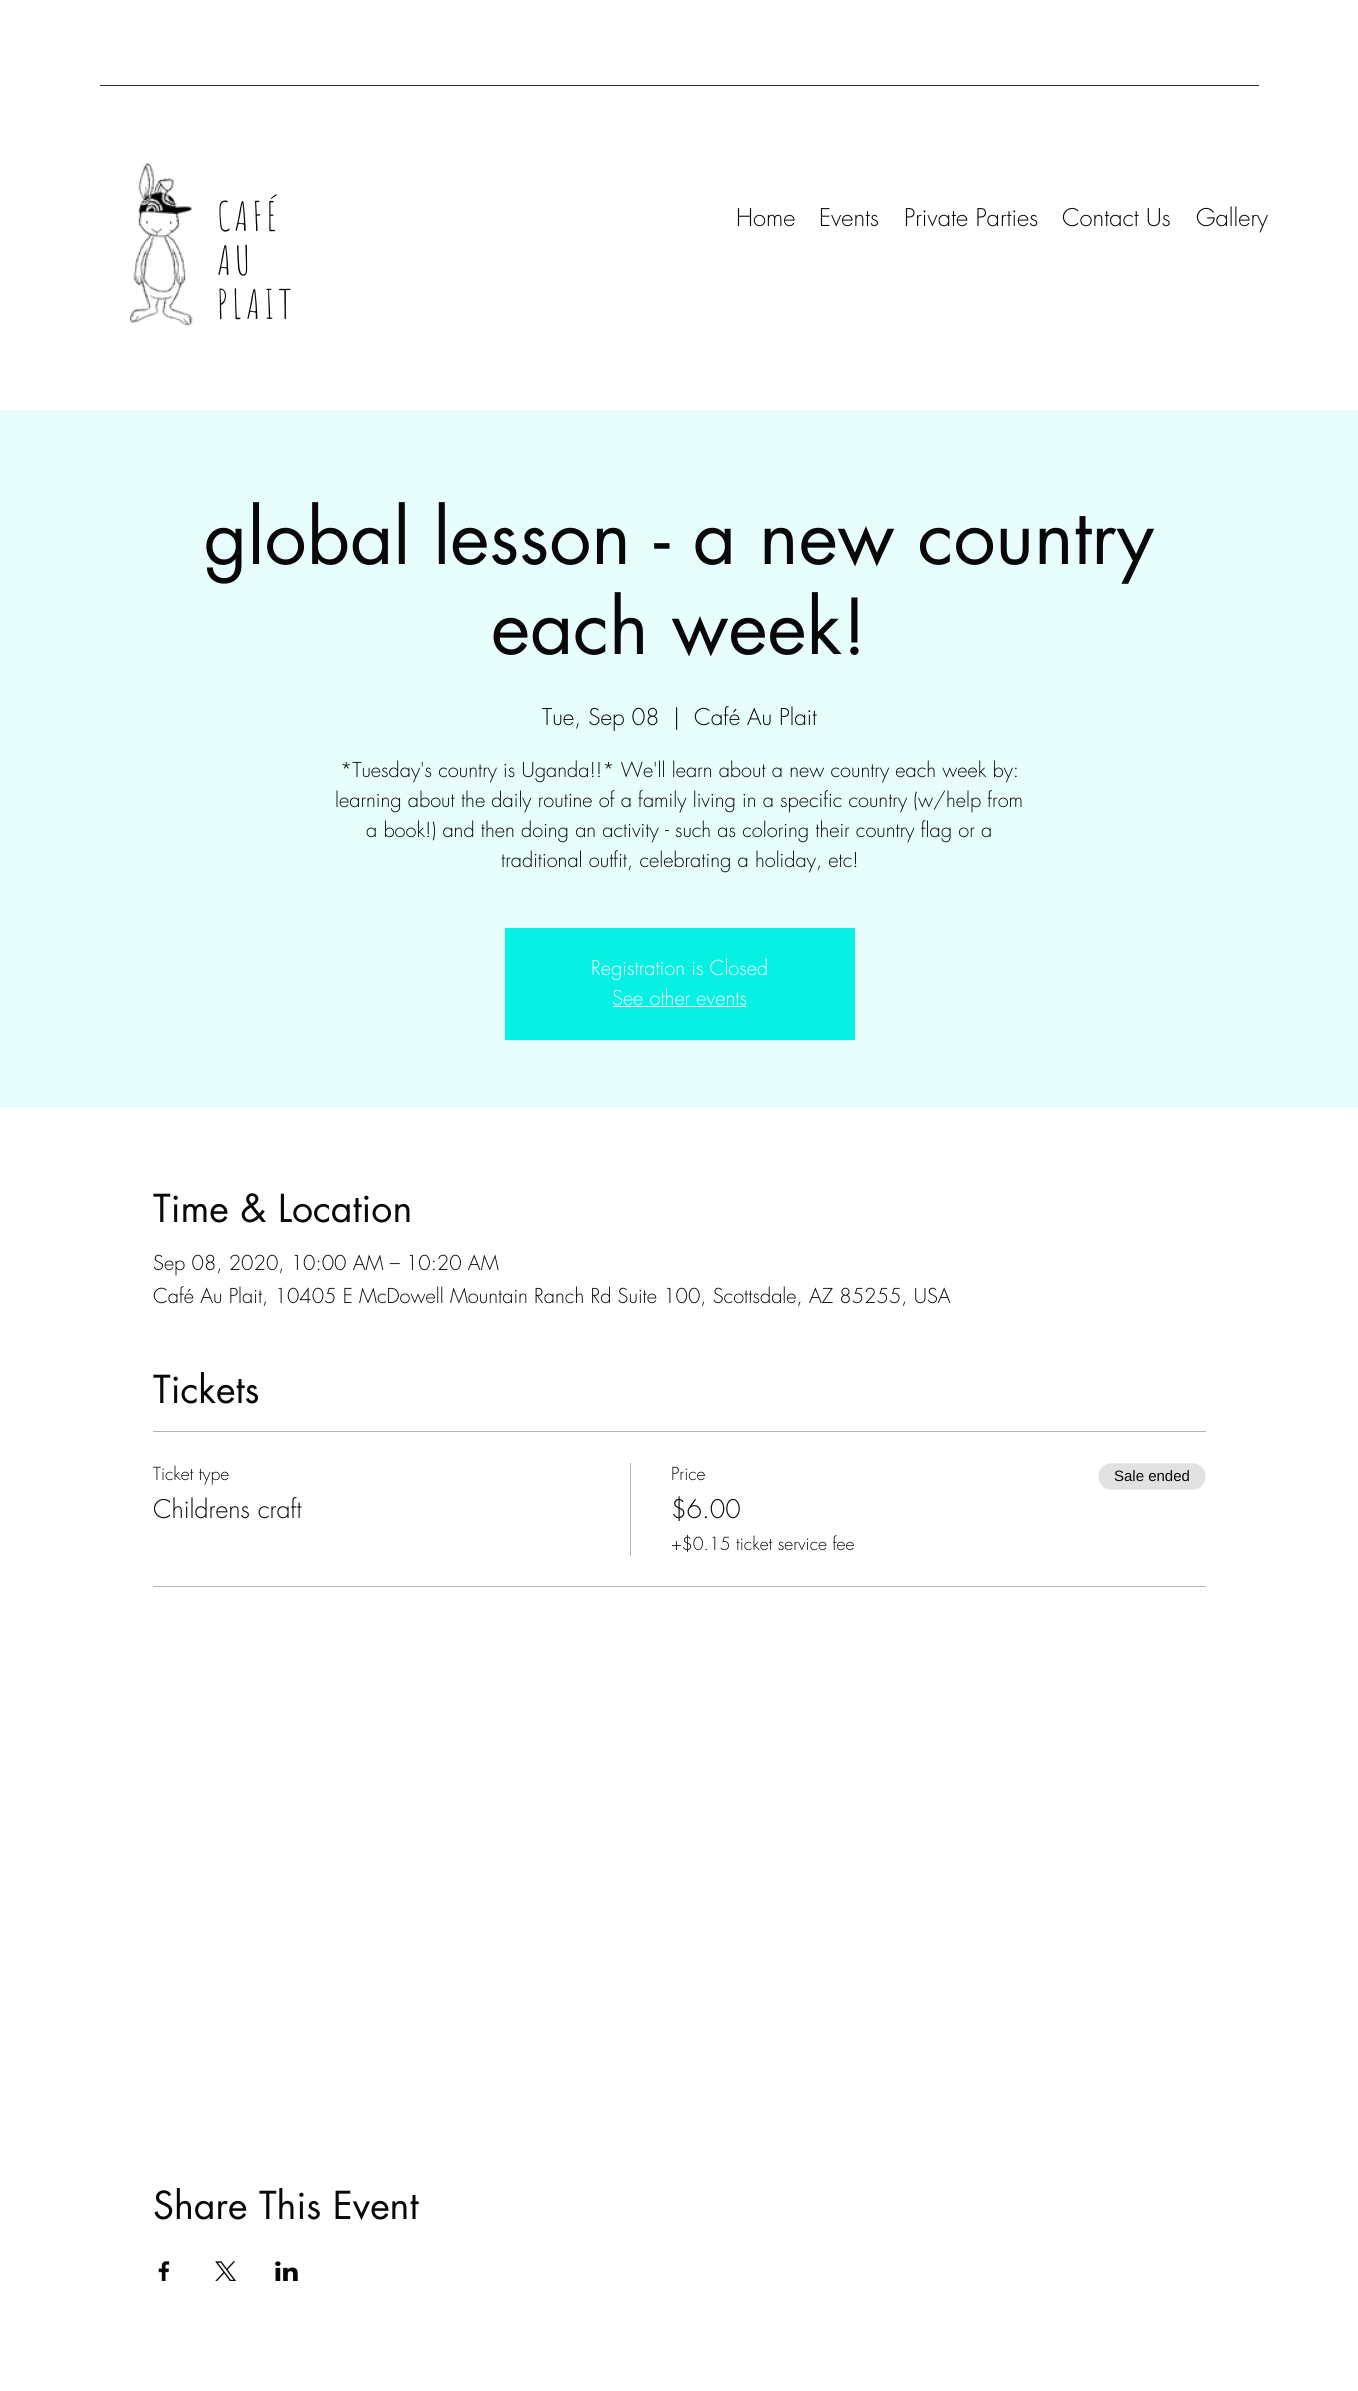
#include <cairo.h>
#include <math.h>
#include <stddef.h>

typedef struct { const char *family; double size; int italic, bold; unsigned color; } style_t;
static cairo_t *ctx;

static void ink(unsigned color) {
    cairo_set_source_rgb(ctx, (color >> 16) / 255.0, (color >> 8 & 255) / 255.0, (color & 255) / 255.0);
}

static void write(double x, double y, const char *s, const style_t *st) {
    cairo_select_font_face(ctx, st->family, st->italic ? CAIRO_FONT_SLANT_ITALIC : CAIRO_FONT_SLANT_NORMAL,
        st->bold ? CAIRO_FONT_WEIGHT_BOLD : CAIRO_FONT_WEIGHT_NORMAL);
    cairo_set_font_size(ctx, st->size);
    ink(st->color);
    cairo_move_to(ctx, x, y);
    cairo_show_text(ctx, s);
}

static void write_spaced(double x, double y, const char *s, double letter, double word) {
    cairo_move_to(ctx, x, y);
    while (*s) {
        char ch[5] = {0};
        int n = 0;
        do ch[n++] = *s++; while ((*s & 0xC0) == 0x80);
        cairo_show_text(ctx, ch);
        cairo_rel_move_to(ctx, letter + word * (*ch == ' '), 0);
    }
}

static void block(double x, double y, double w, double h, unsigned color) {
    ink(color);
    cairo_rectangle(ctx, x, y, w, h);
    cairo_fill(ctx);
}

static void round_path(double x, double y, double w, double h, double r) {
    cairo_new_sub_path(ctx);
    cairo_arc(ctx, x + w - r, y + h - r, r, 0, M_PI / 2);
    cairo_arc(ctx, x + r, y + h - r, r, M_PI / 2, M_PI);
    cairo_arc(ctx, x + r, y + r, r, M_PI, 1.5 * M_PI);
    cairo_arc(ctx, x + w - r, y + r, r, 1.5 * M_PI, 2 * M_PI);
    cairo_close_path(ctx);
}

static void paste(const char *path, double x, double y, double w, double h) {
    cairo_surface_t *image = cairo_image_surface_create_from_png(path);
    cairo_save(ctx);
    cairo_set_source_surface(ctx, image, x, y);
    cairo_rectangle(ctx, x, y, w, h);
    cairo_fill(ctx);
    cairo_restore(ctx);
    cairo_surface_destroy(image);
}

static const style_t s1 = {"futura Light", 23.75, 0, 0, 0x090808};
static const style_t s2 = {"futura", 75, 0, 0, 0x090808};
static const style_t s3 = {"futura Light", 22.5, 0, 0, 0x090808};
static const style_t s4 = {"futura Light", 20, 0, 0, 0x090808};
static const style_t s5 = {"futura Light", 20, 0, 0, 0xffffff};
static const style_t s6 = {"futura", 37.5, 0, 0, 0x090808};
static const style_t s7 = {"futura Light", 17.5, 0, 0, 0x090808};
static const style_t s8 = {"futura Light", 25, 0, 0, 0x090808};
static const style_t s9 = {"Liberation Sans", 15, 0, 0, 0x090808};

int main(void) {
    cairo_surface_t *surface = cairo_image_surface_create(CAIRO_FORMAT_RGB24, 1358, 2391);
    ctx = cairo_create(surface);
    cairo_font_options_t *options = cairo_font_options_create();
    cairo_font_options_set_hint_metrics(options, CAIRO_HINT_METRICS_OFF);
    cairo_font_options_set_hint_style(options, CAIRO_HINT_STYLE_NONE);
    cairo_set_font_options(ctx, options);
    cairo_set_miter_limit(ctx, 4);
    ink(0xffffff);
    cairo_paint(ctx);
    block(100, 85, 1159, 1, 0x2e2d2d);
    paste("pic1.png", 129, 162, 64, 164);
    cairo_select_font_face(ctx, "Amatic SC", CAIRO_FONT_SLANT_NORMAL, CAIRO_FONT_WEIGHT_NORMAL);
    cairo_set_font_size(ctx, 40);
    ink(0x090808);
    write_spaced(217, 231, "CAFÉ", 4, 0);
    write_spaced(217, 275, "AU", 4, 0);
    write_spaced(217, 319, "PLAIT", 4, 0);
    write(736, 226, "Home", &s1);
    write(819, 226, "Events", &s1);
    write(904, 226, "Private Parties", &s1);
    write(1062, 226, "Contact Us", &s1);
    write(1196, 226, "Gallery", &s1);
    block(0, 410, 1358, 698, 0xe7fefd);
    write(204, 564, "global lesson - a new country", &s2);
    write(491, 654, "each week!", &s2);
    write(542, 725, "Tue, Sep 08", &s3);
    write(673, 725, "|", &s3);
    write(694, 725, "Café Au Plait", &s3);
    write(340, 777, "*Tuesday's country is Uganda!!* We'll learn about a new country each week by:", &s4);
    write(335, 807, "learning about the daily routine of a family living in a specific country (w/help from", &s4);
    write(366, 837, "a book!) and then doing an activity - such as coloring their country flag or a", &s4);
    write(501, 867, "traditional outfit, celebrating a holiday, etc!", &s4);
    block(505, 928, 350, 112, 0x06f1e3);
    write(591, 975, "Registration is Closed", &s5);
    write(612, 1005, "See other events", &s5);
    block(613, 1006, 133, 1, 0xffffff);
    write(153, 1222, "Time & Location", &s6);
    write(153, 1270, "Sep 08, 2020, 10:00 AM – 10:20 AM", &s4);
    write(153, 1303, "Café Au Plait, 10405 E McDowell Mountain Ranch Rd Suite 100, Scottsdale, AZ 85255, USA", &s4);
    write(153, 1403, "Tickets", &s6);
    block(153, 1431, 1053, 1, 0xb5b5b5);
    block(153, 1586, 1053, 1, 0xb5b5b5);
    write(153, 1480, "Ticket type", &s7);
    write(153, 1518, "Childrens craft", &s8);
    block(630, 1463, 1, 93, 0xb5b5b5);
    write(671, 1480, "Price", &s7);
    write(671, 1518, "$6.00", &s8);
    write(671, 1550, "+$0.15 ticket service fee", &s7);
    ink(0xe1e1e1);
    round_path(1098, 1463, 108, 27, 13.5);
    cairo_fill(ctx);
    round_path(1098.5, 1463.5, 107, 26, 13);
    cairo_set_source_rgba(ctx, 1, 1, 1, 0.4);
    cairo_set_line_width(ctx, 1);
    cairo_stroke(ctx);
    write(1114, 1481, "Sale ended", &s9);
    write(153, 2219, "Share This Event", &s6);
    paste("pic2.png", 158, 2261, 12, 20);
    paste("pic3.png", 215, 2261, 21, 20);
    paste("pic4.png", 275, 2261, 23, 20);
    cairo_surface_write_to_png(surface, "screenshot.png");
    cairo_font_options_destroy(options);
    cairo_destroy(ctx);
    cairo_surface_destroy(surface);
    return 0;
}
